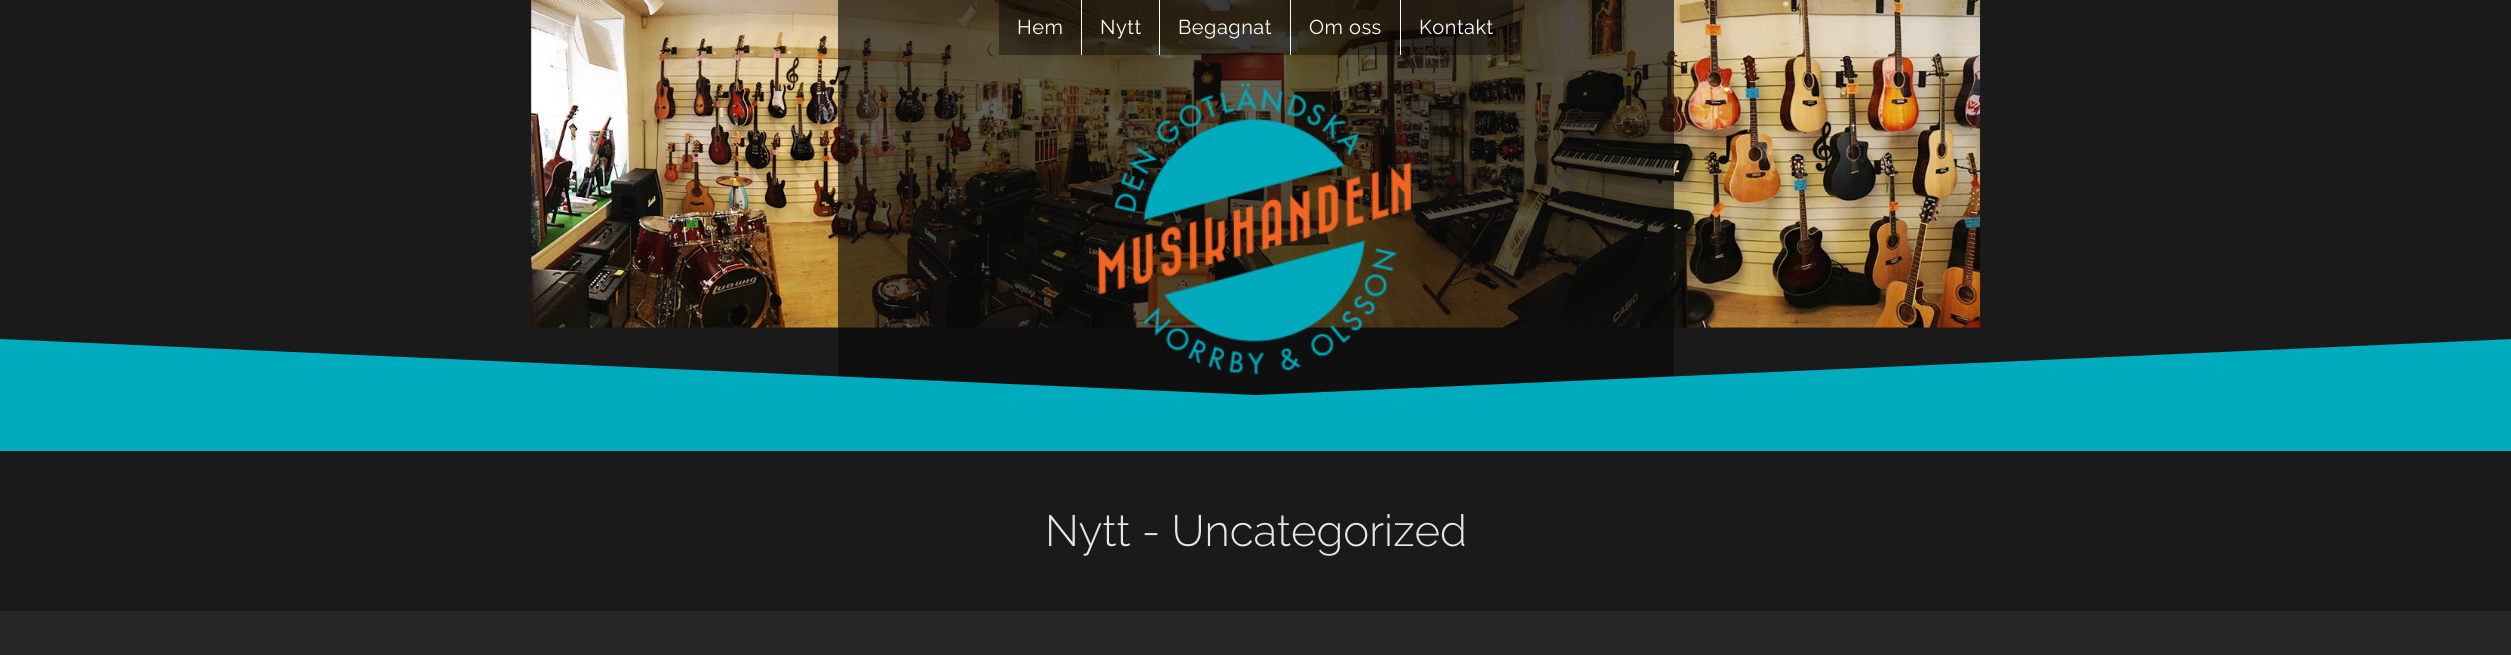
#include <cairo.h>
#include <math.h>
#include <stddef.h>

typedef struct { const char *family; double size; int italic, bold; unsigned color; } style_t;
static cairo_t *ctx;

static void ink(unsigned color) {
    cairo_set_source_rgb(ctx, (color >> 16) / 255.0, (color >> 8 & 255) / 255.0, (color & 255) / 255.0);
}

static void write(double x, double y, const char *s, const style_t *st) {
    cairo_select_font_face(ctx, st->family, st->italic ? CAIRO_FONT_SLANT_ITALIC : CAIRO_FONT_SLANT_NORMAL,
        st->bold ? CAIRO_FONT_WEIGHT_BOLD : CAIRO_FONT_WEIGHT_NORMAL);
    cairo_set_font_size(ctx, st->size);
    ink(st->color);
    cairo_move_to(ctx, x, y);
    cairo_show_text(ctx, s);
}

static void write_spaced(double x, double y, const char *s, double letter, double word) {
    cairo_move_to(ctx, x, y);
    while (*s) {
        char ch[5] = {0};
        int n = 0;
        do ch[n++] = *s++; while ((*s & 0xC0) == 0x80);
        cairo_show_text(ctx, ch);
        cairo_rel_move_to(ctx, letter + word * (*ch == ' '), 0);
    }
}

static void block(double x, double y, double w, double h, unsigned color) {
    ink(color);
    cairo_rectangle(ctx, x, y, w, h);
    cairo_fill(ctx);
}

static void paste(const char *path, double x, double y, double w, double h) {
    cairo_surface_t *image = cairo_image_surface_create_from_png(path);
    cairo_save(ctx);
    cairo_set_source_surface(ctx, image, x, y);
    cairo_rectangle(ctx, x, y, w, h);
    cairo_fill(ctx);
    cairo_restore(ctx);
    cairo_surface_destroy(image);
}

static const style_t s1 = {"Raleway Light", 43.75, 0, 0, 0xe6e6e6};

int main(void) {
    cairo_surface_t *surface = cairo_image_surface_create(CAIRO_FORMAT_RGB24, 2511, 655);
    ctx = cairo_create(surface);
    cairo_font_options_t *options = cairo_font_options_create();
    cairo_font_options_set_hint_metrics(options, CAIRO_HINT_METRICS_OFF);
    cairo_font_options_set_hint_style(options, CAIRO_HINT_STYLE_NONE);
    cairo_set_font_options(ctx, options);
    cairo_set_miter_limit(ctx, 4);
    ink(0x1a1a1a);
    cairo_paint(ctx);
    paste("pic1.png", 531, 0, 1450, 328);
    cairo_set_source_rgba(ctx, 0.039, 0.039, 0.039, 0.65);
    cairo_rectangle(ctx, 838, 0, 836, 395);
    cairo_fill(ctx);
    cairo_set_source_rgba(ctx, 0, 0, 0, 0.4);
    cairo_rectangle(ctx, 999, 0, 514, 55);
    cairo_fill(ctx);
    cairo_select_font_face(ctx, "Raleway", CAIRO_FONT_SLANT_NORMAL, CAIRO_FONT_WEIGHT_NORMAL);
    cairo_set_font_size(ctx, 20);
    ink(0xffffff);
    write_spaced(1017, 34, "Hem", 0.5, 0);
    block(1081, 0, 1, 55, 0xffffff);
    write_spaced(1100, 34, "Nytt", 0.5, 0);
    block(1159, 0, 1, 55, 0xffffff);
    write_spaced(1178, 34, "Begagnat", 0.5, 0);
    block(1290, 0, 1, 55, 0xffffff);
    write_spaced(1309, 34, "Om oss", 0.5, 0);
    block(1400, 0, 1, 55, 0xffffff);
    write_spaced(1419, 34, "Kontakt", 0.5, 0);
    paste("pic2.png", 1098, 82, 314, 292);
    ink(0x00abbd);
    cairo_new_path(ctx);
    cairo_move_to(ctx, 0, 339);
    cairo_line_to(ctx, 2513, 339);
    cairo_close_path(ctx);
    cairo_move_to(ctx, 0, 451);
    cairo_line_to(ctx, 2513, 451);
    cairo_line_to(ctx, 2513, 395);
    cairo_line_to(ctx, 0, 395);
    cairo_close_path(ctx);
    cairo_move_to(ctx, 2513, 339);
    cairo_line_to(ctx, 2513, 395);
    cairo_line_to(ctx, 0, 395);
    cairo_line_to(ctx, 0, 339);
    cairo_line_to(ctx, 1256, 395);
    cairo_close_path(ctx);
    cairo_fill(ctx);
    write(1045, 546, "Nytt - Uncategorized", &s1);
    block(0, 611, 2511, 44, 0x262626);
    cairo_surface_write_to_png(surface, "screenshot.png");
    cairo_font_options_destroy(options);
    cairo_destroy(ctx);
    cairo_surface_destroy(surface);
    return 0;
}
